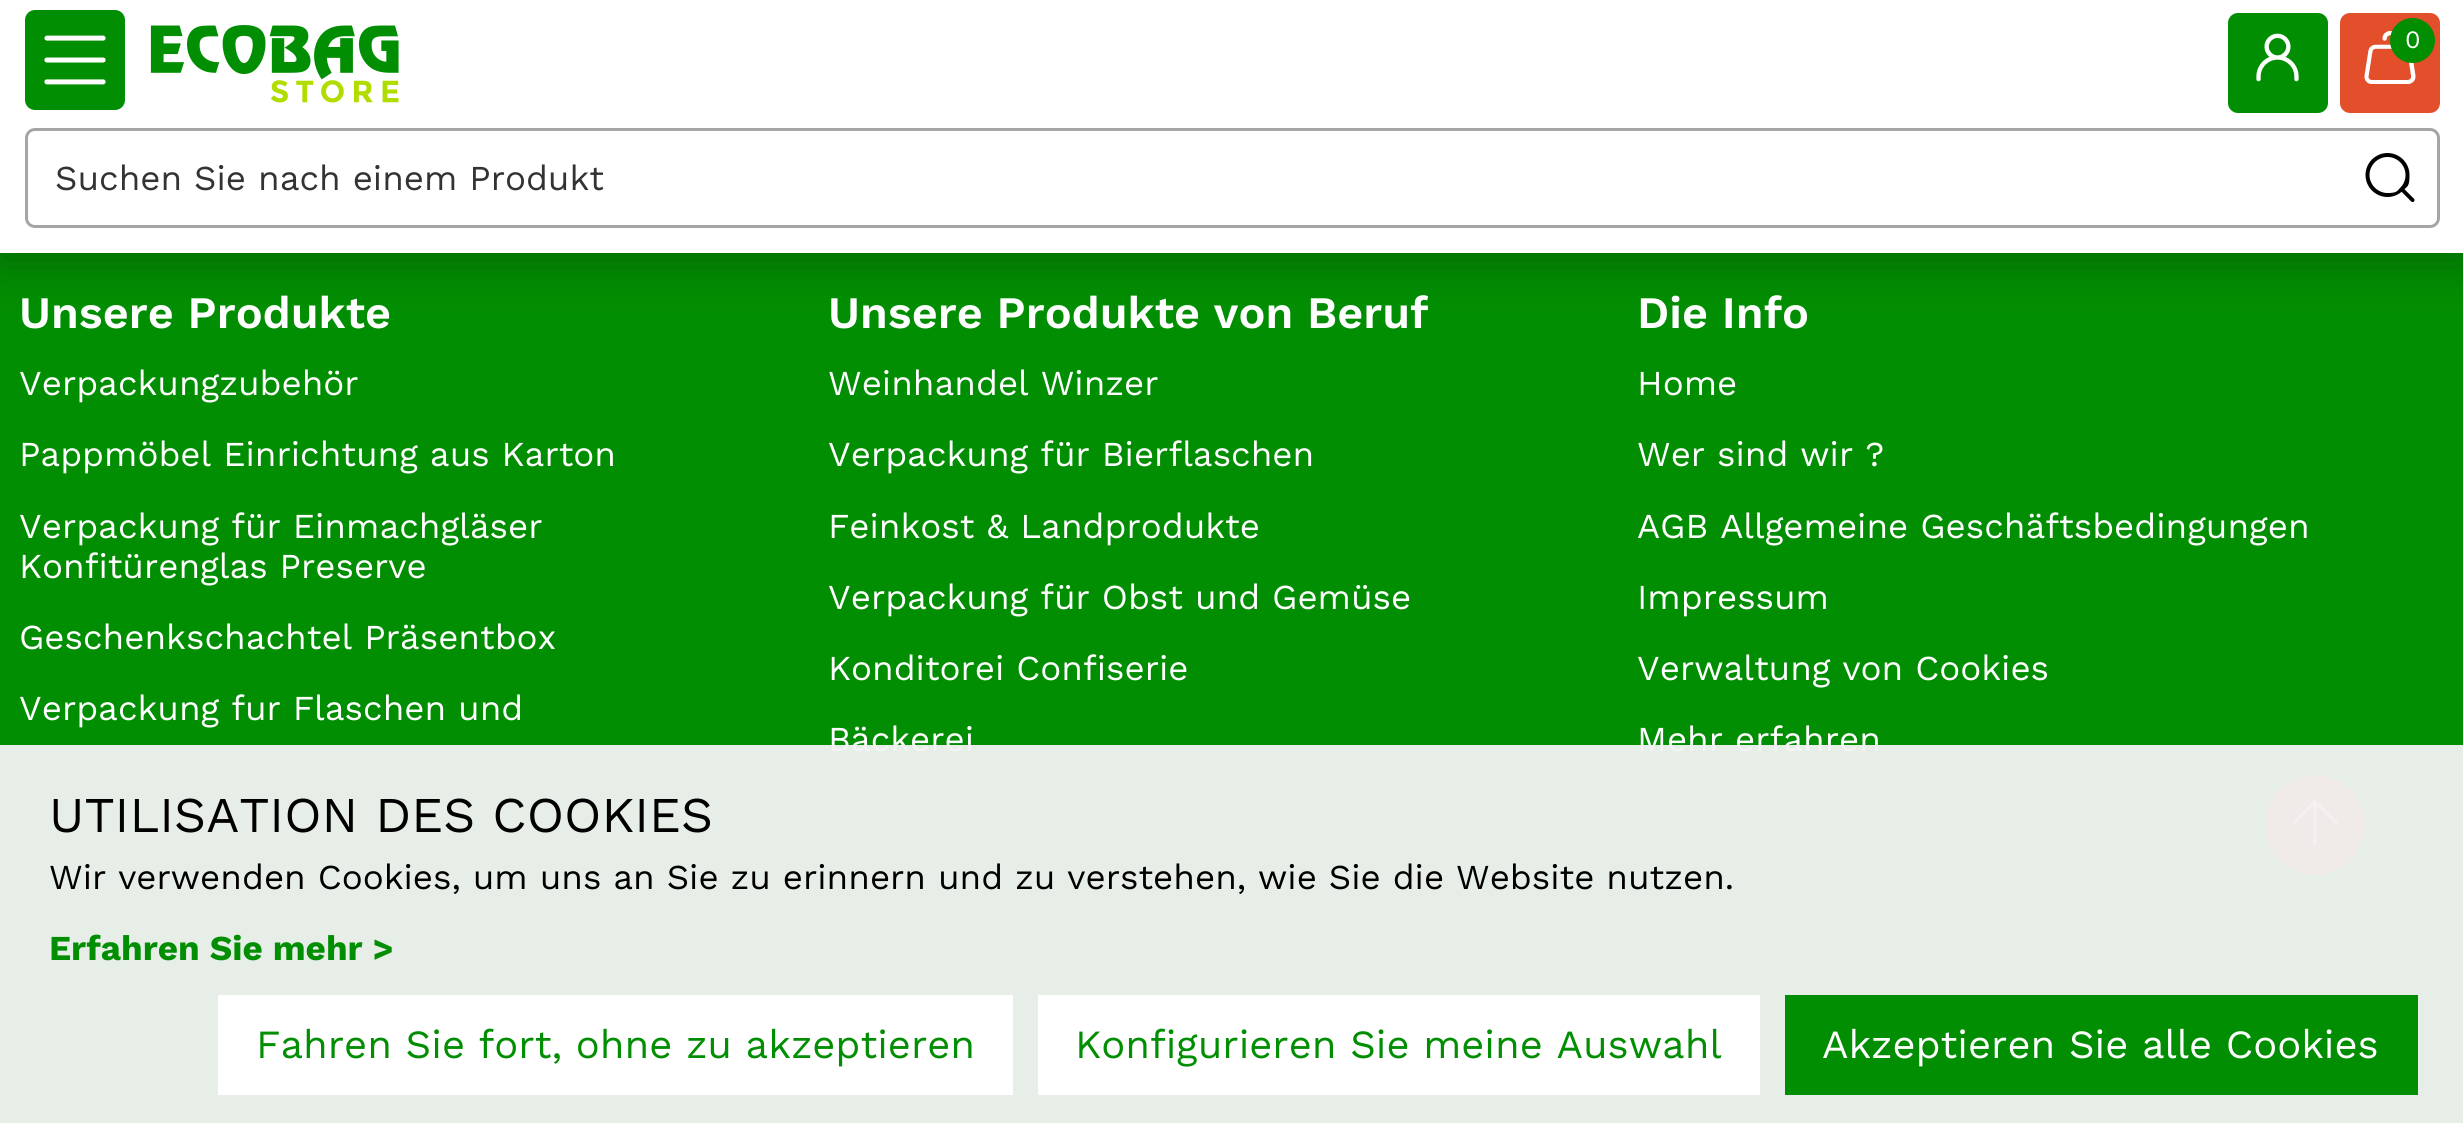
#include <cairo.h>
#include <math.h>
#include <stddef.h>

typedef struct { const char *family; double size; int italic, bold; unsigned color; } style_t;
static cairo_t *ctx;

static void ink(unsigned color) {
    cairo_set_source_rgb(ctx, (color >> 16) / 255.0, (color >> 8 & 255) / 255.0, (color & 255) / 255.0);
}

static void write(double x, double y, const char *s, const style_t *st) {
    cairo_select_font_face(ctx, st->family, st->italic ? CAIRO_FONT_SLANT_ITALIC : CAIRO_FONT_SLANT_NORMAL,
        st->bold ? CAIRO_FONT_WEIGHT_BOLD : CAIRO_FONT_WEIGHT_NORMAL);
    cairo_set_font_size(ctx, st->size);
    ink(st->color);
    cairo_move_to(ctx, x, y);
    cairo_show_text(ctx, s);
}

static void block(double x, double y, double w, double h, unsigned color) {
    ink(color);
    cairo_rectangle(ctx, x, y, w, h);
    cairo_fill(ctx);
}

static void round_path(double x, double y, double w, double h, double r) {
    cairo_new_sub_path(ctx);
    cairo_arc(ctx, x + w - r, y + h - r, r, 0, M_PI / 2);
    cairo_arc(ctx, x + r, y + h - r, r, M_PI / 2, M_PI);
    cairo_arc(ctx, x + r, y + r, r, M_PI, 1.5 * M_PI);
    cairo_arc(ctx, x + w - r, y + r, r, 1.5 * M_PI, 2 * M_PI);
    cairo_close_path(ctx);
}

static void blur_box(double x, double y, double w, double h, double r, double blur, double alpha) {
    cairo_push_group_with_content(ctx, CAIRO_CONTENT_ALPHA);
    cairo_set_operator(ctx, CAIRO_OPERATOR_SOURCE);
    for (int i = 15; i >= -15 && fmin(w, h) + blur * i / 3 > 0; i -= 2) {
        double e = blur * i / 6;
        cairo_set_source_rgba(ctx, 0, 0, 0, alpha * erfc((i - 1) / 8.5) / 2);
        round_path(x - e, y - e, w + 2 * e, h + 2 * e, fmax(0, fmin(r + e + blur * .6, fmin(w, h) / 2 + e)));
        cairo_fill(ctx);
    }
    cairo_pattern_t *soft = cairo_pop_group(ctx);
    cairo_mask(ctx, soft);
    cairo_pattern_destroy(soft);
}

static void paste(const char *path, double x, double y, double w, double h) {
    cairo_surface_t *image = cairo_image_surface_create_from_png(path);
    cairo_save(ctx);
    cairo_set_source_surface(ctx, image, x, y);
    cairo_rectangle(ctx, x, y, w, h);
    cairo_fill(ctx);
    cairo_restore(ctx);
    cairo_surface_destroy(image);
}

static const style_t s1 = {"Work Sans", 25, 0, 0, 0xffffff};
static const style_t s2 = {"Work Sans", 35, 0, 0, 0x333333};
static const style_t s3 = {"Work Sans SemiBold", 45, 0, 0, 0xffffff};
static const style_t s4 = {"Work Sans", 35, 0, 0, 0xffffff};
static const style_t s5 = {"Work Sans", 50, 0, 0, 0x000000};
static const style_t s6 = {"Work Sans", 35, 0, 0, 0x000000};
static const style_t s7 = {"Work Sans", 35, 0, 1, 0x028e02};
static const style_t s8 = {"Work Sans", 40, 0, 0, 0x028e02};
static const style_t s9 = {"Work Sans", 40, 0, 0, 0xffffff};

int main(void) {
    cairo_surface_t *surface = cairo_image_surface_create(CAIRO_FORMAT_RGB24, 2463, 1123);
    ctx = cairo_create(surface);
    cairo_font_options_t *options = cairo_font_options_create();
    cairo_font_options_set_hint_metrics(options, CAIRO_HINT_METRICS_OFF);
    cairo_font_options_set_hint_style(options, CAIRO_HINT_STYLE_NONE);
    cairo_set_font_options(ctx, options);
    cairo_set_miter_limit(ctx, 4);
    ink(0x028e02);
    cairo_paint(ctx);
    ink(0x000000);
    blur_box(0, 5, 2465, 253, 0, 25, 0.3);
    block(0, 0, 2463, 253, 0xffffff);
    ink(0x028e02);
    round_path(25, 10, 100, 100, 10);
    cairo_fill(ctx);
    paste("pic1.png", 44, 35, 62, 50);
    round_path(2228, 13, 100, 100, 10);
    cairo_fill(ctx);
    paste("pic2.png", 2256, 33, 43, 49);
    ink(0xe34f2b);
    round_path(2340, 13, 100, 100, 10);
    cairo_fill(ctx);
    paste("pic3.png", 2364, 31, 52, 53);
    ink(0x028e02);
    cairo_arc(ctx, 2412.5, 40.5, 22.5, 0, 2 * M_PI);
    cairo_fill(ctx);
    write(2405, 48, "0", &s1);
    paste("pic4.png", 150, 25, 249, 78);
    round_path(26.5, 129.5, 2412, 97, 8.5);
    ink(0xa5a5a5);
    cairo_set_line_width(ctx, 3);
    cairo_stroke(ctx);
    write(55, 190, "Suchen Sie nach einem Produkt", &s2);
    paste("pic5.png", 2365, 153, 50, 49);
    write(19, 328, "Unsere Produkte", &s3);
    write(19, 395, "Verpackungzubehör", &s4);
    write(19, 466, "Pappmöbel Einrichtung aus Karton", &s4);
    write(19, 538, "Verpackung für Einmachgläser", &s4);
    write(19, 578, "Konfitürenglas Preserve", &s4);
    write(19, 649, "Geschenkschachtel Präsentbox", &s4);
    write(19, 720, "Verpackung fur Flaschen und", &s4);
    write(828, 328, "Unsere Produkte von Beruf", &s3);
    write(828, 395, "Weinhandel Winzer", &s4);
    write(828, 466, "Verpackung für Bierflaschen", &s4);
    write(828, 538, "Feinkost & Landprodukte", &s4);
    write(828, 609, "Verpackung für Obst und Gemüse", &s4);
    write(828, 680, "Konditorei Confiserie", &s4);
    write(828, 751, "Bäckerei", &s4);
    write(1637, 328, "Die Info", &s3);
    write(1637, 395, "Home", &s4);
    write(1637, 466, "Wer sind wir ?", &s4);
    write(1637, 538, "AGB Allgemeine Geschäftsbedingungen", &s4);
    write(1637, 609, "Impressum", &s4);
    write(1637, 680, "Verwaltung von Cookies", &s4);
    write(1637, 751, "Mehr erfahren", &s4);
    ink(0xc15825);
    cairo_new_path(ctx);
    cairo_arc(ctx, 2315, 825, 50, 0, 2 * M_PI);
    cairo_fill(ctx);
    paste("pic6.png", 2292, 800, 46, 45);
    cairo_set_source_rgba(ctx, 0.953, 0.953, 0.953, 0.95);
    cairo_rectangle(ctx, 0, 745, 2463, 378);
    cairo_fill(ctx);
    write(49, 832, "UTILISATION DES COOKIES", &s5);
    write(49, 889, "Wir verwenden Cookies, um uns an Sie zu erinnern und zu verstehen, wie Sie die Website nutzen.", &s6);
    write(49, 960, "Erfahren Sie mehr >", &s7);
    block(218, 995, 795, 100, 0xffffff);
    write(256, 1058, "Fahren Sie fort, ohne zu akzeptieren", &s8);
    block(1038, 995, 722, 100, 0xffffff);
    write(1075, 1058, "Konfigurieren Sie meine Auswahl", &s8);
    block(1785, 995, 633, 100, 0x028e02);
    write(1822, 1058, "Akzeptieren Sie alle Cookies", &s9);
    cairo_surface_write_to_png(surface, "screenshot.png");
    cairo_font_options_destroy(options);
    cairo_destroy(ctx);
    cairo_surface_destroy(surface);
    return 0;
}
